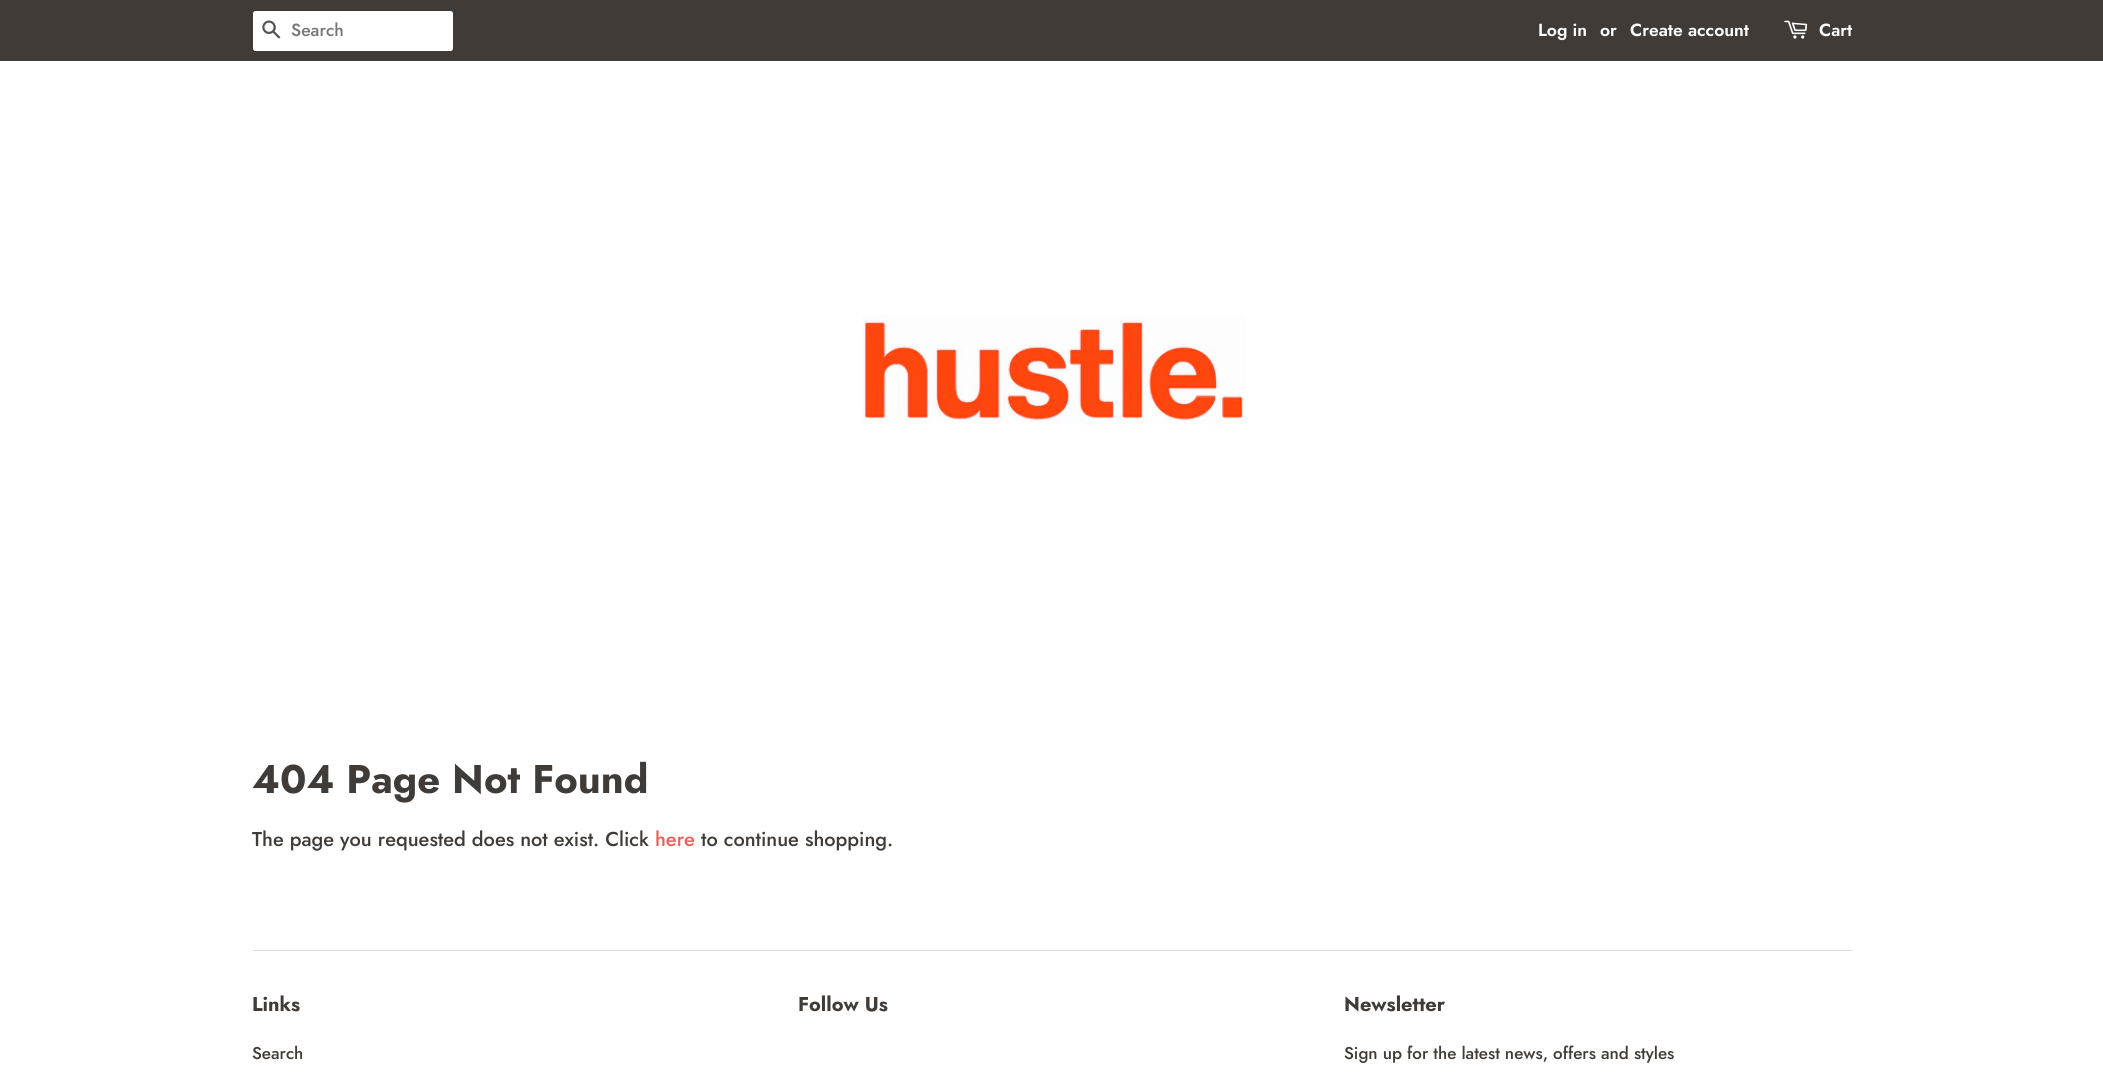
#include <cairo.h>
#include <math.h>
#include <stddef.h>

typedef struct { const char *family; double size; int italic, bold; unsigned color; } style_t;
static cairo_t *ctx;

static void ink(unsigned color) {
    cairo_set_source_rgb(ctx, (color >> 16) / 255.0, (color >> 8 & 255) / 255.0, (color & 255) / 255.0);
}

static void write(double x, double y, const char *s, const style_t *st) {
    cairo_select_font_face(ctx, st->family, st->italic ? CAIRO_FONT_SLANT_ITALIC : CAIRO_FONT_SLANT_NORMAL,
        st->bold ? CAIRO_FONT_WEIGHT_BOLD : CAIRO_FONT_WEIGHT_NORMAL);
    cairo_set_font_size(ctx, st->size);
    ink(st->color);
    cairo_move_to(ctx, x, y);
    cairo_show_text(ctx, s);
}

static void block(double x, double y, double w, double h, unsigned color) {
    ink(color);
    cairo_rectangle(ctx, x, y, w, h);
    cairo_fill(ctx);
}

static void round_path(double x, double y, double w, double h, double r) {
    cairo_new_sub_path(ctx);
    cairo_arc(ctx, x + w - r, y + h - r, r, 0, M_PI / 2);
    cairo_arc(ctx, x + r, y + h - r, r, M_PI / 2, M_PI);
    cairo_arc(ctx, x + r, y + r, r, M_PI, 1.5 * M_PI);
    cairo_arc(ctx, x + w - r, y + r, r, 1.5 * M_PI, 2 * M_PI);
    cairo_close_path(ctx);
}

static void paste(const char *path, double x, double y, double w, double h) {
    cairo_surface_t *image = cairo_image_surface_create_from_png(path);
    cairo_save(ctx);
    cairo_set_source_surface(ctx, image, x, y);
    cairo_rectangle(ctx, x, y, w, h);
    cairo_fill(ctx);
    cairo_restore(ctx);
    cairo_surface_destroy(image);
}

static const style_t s1 = {"Jost Medium", 17.5, 0, 0, 0x757575};
static const style_t s2 = {"Jost SemiBold", 17.5, 0, 0, 0xffffff};
static const style_t s3 = {"Jost", 40, 0, 1, 0x403b37};
static const style_t s4 = {"Jost Medium", 20, 0, 0, 0x403b37};
static const style_t s5 = {"Jost Medium", 20, 0, 0, 0xf25c54};
static const style_t s6 = {"Jost", 20, 0, 1, 0x403b37};
static const style_t s7 = {"Jost Medium", 17, 0, 0, 0x403b37};

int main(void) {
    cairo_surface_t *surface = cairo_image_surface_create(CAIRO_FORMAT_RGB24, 2103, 1072);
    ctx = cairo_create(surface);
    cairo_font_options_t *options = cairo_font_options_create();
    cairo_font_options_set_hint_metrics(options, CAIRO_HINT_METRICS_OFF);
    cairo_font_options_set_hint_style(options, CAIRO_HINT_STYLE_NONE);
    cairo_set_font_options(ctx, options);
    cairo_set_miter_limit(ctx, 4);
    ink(0xffffff);
    cairo_paint(ctx);
    block(0, 0, 2103, 61, 0x403b37);
    ink(0xffffff);
    round_path(253, 11, 200, 40, 2.5);
    cairo_fill(ctx);
    paste("pic1.png", 262, 20, 19, 19);
    write(291, 36, "Search", &s1);
    write(1538, 36, "Log in", &s2);
    write(1600, 36, "or", &s2);
    write(1630, 36, "Create account", &s2);
    paste("pic2.png", 1784, 20, 24, 19);
    write(1819, 36, "Cart", &s2);
    paste("pic3.png", 862, 315, 384, 110);
    write(252, 793, "404 Page Not Found", &s3);
    write(252, 846, "The page you requested does not exist. Click", &s4);
    write(655, 846, "here", &s5);
    write(701, 846, "to continue shopping.", &s4);
    block(253, 950, 1600, 1, 0xdddddd);
    write(252, 1011, "Links", &s6);
    write(252, 1059, "Search", &s7);
    write(798, 1011, "Follow Us", &s6);
    write(1344, 1011, "Newsletter", &s6);
    write(1344, 1059, "Sign up for the latest news, offers and styles", &s7);
    cairo_surface_write_to_png(surface, "screenshot.png");
    cairo_font_options_destroy(options);
    cairo_destroy(ctx);
    cairo_surface_destroy(surface);
    return 0;
}
